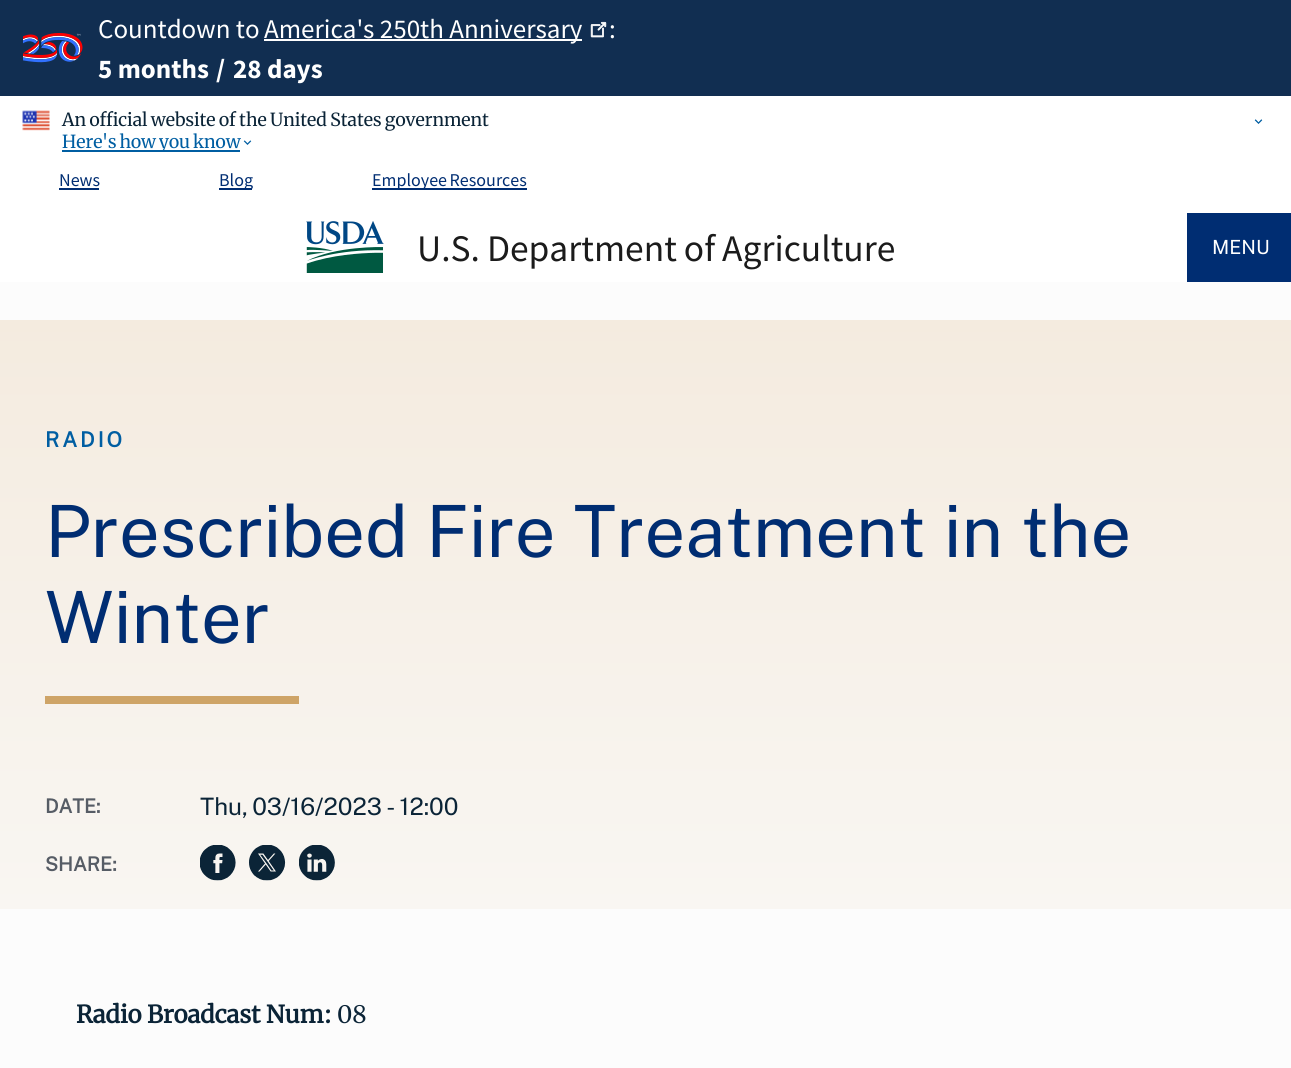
#include <cairo.h>
#include <math.h>
#include <stddef.h>

typedef struct { const char *family; double size; int italic, bold; unsigned color; } style_t;
static cairo_t *ctx;

static void ink(unsigned color) {
    cairo_set_source_rgb(ctx, (color >> 16) / 255.0, (color >> 8 & 255) / 255.0, (color & 255) / 255.0);
}

static void write(double x, double y, const char *s, const style_t *st) {
    cairo_select_font_face(ctx, st->family, st->italic ? CAIRO_FONT_SLANT_ITALIC : CAIRO_FONT_SLANT_NORMAL,
        st->bold ? CAIRO_FONT_WEIGHT_BOLD : CAIRO_FONT_WEIGHT_NORMAL);
    cairo_set_font_size(ctx, st->size);
    ink(st->color);
    cairo_move_to(ctx, x, y);
    cairo_show_text(ctx, s);
}

static void write_spaced(double x, double y, const char *s, double letter, double word) {
    cairo_move_to(ctx, x, y);
    while (*s) {
        char ch[5] = {0};
        int n = 0;
        do ch[n++] = *s++; while ((*s & 0xC0) == 0x80);
        cairo_show_text(ctx, ch);
        cairo_rel_move_to(ctx, letter + word * (*ch == ' '), 0);
    }
}

static void block(double x, double y, double w, double h, unsigned color) {
    ink(color);
    cairo_rectangle(ctx, x, y, w, h);
    cairo_fill(ctx);
}

static void paste(const char *path, double x, double y, double w, double h) {
    cairo_surface_t *image = cairo_image_surface_create_from_png(path);
    cairo_save(ctx);
    cairo_set_source_surface(ctx, image, x, y);
    cairo_rectangle(ctx, x, y, w, h);
    cairo_fill(ctx);
    cairo_restore(ctx);
    cairo_surface_destroy(image);
}

static const style_t s1 = {"Source Sans Pro", 27, 0, 0, 0xffffff};
static const style_t s2 = {"Source Sans Pro", 27, 0, 1, 0xffffff};
static const style_t s3 = {"Source Sans Pro", 18, 0, 0, 0x002d72};
static const style_t s4 = {"Public Sans", 19.5, 0, 0, 0xffffff};
static const style_t s5 = {"Public Sans", 72, 0, 0, 0x002d72};
static const style_t s6 = {"Public Sans", 19.5, 0, 1, 0x565c65};
static const style_t s7 = {"Merriweather", 24, 0, 1, 0x0b2437};
static const style_t s8 = {"Merriweather", 24, 0, 0, 0x0b2437};

int main(void) {
    cairo_surface_t *surface = cairo_image_surface_create(CAIRO_FORMAT_RGB24, 1291, 1068);
    ctx = cairo_create(surface);
    cairo_font_options_t *options = cairo_font_options_create();
    cairo_font_options_set_hint_metrics(options, CAIRO_HINT_METRICS_OFF);
    cairo_font_options_set_hint_style(options, CAIRO_HINT_STYLE_NONE);
    cairo_set_font_options(ctx, options);
    cairo_set_miter_limit(ctx, 4);
    cairo_pattern_t *gradient;
    ink(0xfcfcfc);
    cairo_paint(ctx);
    block(0, 96, 1291, 186, 0xffffff);
    block(0, 0, 1291, 96, 0x112e51);
    paste("pic1.png", 23, 33, 60, 30);
    write(98, 38, "Countdown to", &s1);
    block(264, 39, 318, 2, 0xffffff);
    write(264, 38, "America's 250th Anniversary", &s1);
    paste("pic2.png", 590, 21, 17, 17);
    write(609, 38, ":", &s1);
    write(98, 78, "5 months", &s2);
    write(216, 78, "/", &s2);
    write(233, 78, "28 days", &s2);
    paste("pic3.png", 22, 110, 28, 21);
    cairo_select_font_face(ctx, "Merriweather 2", CAIRO_FONT_SLANT_NORMAL, CAIRO_FONT_WEIGHT_NORMAL);
    cairo_set_font_size(ctx, 18);
    ink(0x0b2437);
    write_spaced(62, 126, "An official website of the United States government", 0, -0.5);
    block(62, 150, 178, 2, 0x005ea2);
    cairo_save(ctx);
    cairo_rectangle(ctx, 23, 132, 1246, 20);
    cairo_clip(ctx);
    write_spaced(62, 148, "Here's how you know", 0, -1);
    cairo_restore(ctx);
    paste("pic4.png", 243, 140, 9, 5);
    paste("pic5.png", 1254, 119, 9, 5);
    write(59, 186, "News", &s3);
    block(59, 188, 40, 2, 0x002d72);
    block(219, 188, 33, 2, 0x002d72);
    write(219, 186, "Blog", &s3);
    block(372, 188, 155, 2, 0x002d72);
    write_spaced(372, 186, "Employee Resources", 0, -1);
    paste("pic6.png", 306, 221, 78, 52);
    cairo_set_font_size(ctx, 37.5);
    ink(0x1b1b1b);
    write_spaced(417, 261, "U.S. Department of Agriculture", 0, -0.5);
    block(1187, 213, 104, 69, 0x002d72);
    write(1212, 254, "MENU", &s4);
    gradient = cairo_pattern_create_linear(646, 909, 646, 320);
    cairo_pattern_add_color_stop_rgba(gradient, 0, 0.976, 0.965, 0.949, 1);
    cairo_pattern_add_color_stop_rgba(gradient, 1, 0.957, 0.922, 0.875, 1);
    cairo_set_source(ctx, gradient);
    cairo_pattern_destroy(gradient);
    cairo_rectangle(ctx, 0, 320, 1291, 589);
    cairo_fill(ctx);
    cairo_select_font_face(ctx, "Public Sans", CAIRO_FONT_SLANT_NORMAL, CAIRO_FONT_WEIGHT_BOLD);
    cairo_set_font_size(ctx, 21);
    ink(0x005ea2);
    write_spaced(45, 447, "RADIO", 3, 0);
    cairo_select_font_face(ctx, "Public Sans", CAIRO_FONT_SLANT_NORMAL, CAIRO_FONT_WEIGHT_NORMAL);
    cairo_set_font_size(ctx, 72);
    ink(0x002d72);
    write_spaced(45, 557, "Prescribed Fire Treatment in the", 0, 0.5);
    write(45, 643, "Winter", &s5);
    block(45, 696, 254, 8, 0xcea467);
    write(45, 813, "DATE:", &s6);
    cairo_select_font_face(ctx, "Public Sans", CAIRO_FONT_SLANT_NORMAL, CAIRO_FONT_WEIGHT_NORMAL);
    cairo_set_font_size(ctx, 24);
    ink(0x0b2437);
    write_spaced(200, 815, "Thu, 03/16/2023 - 12:00", 0, -1.5);
    write(45, 871, "SHARE:", &s6);
    paste("pic7.png", 200, 845, 36, 36);
    paste("pic8.png", 249, 845, 37, 36);
    paste("pic9.png", 299, 845, 36, 36);
    write(76, 1023, "Radio Broadcast Num:", &s7);
    write(337, 1023, "08", &s8);
    cairo_surface_write_to_png(surface, "screenshot.png");
    cairo_font_options_destroy(options);
    cairo_destroy(ctx);
    cairo_surface_destroy(surface);
    return 0;
}
